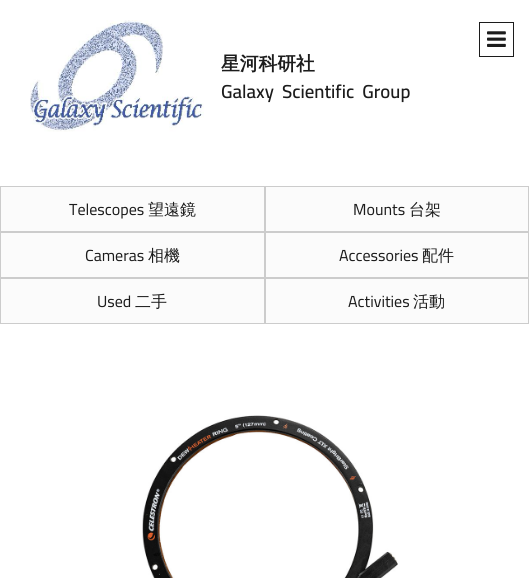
#include <cairo.h>
#include <math.h>
#include <stddef.h>

typedef struct { const char *family; double size; int italic, bold; unsigned color; } style_t;
static cairo_t *ctx;

static void ink(unsigned color) {
    cairo_set_source_rgb(ctx, (color >> 16) / 255.0, (color >> 8 & 255) / 255.0, (color & 255) / 255.0);
}

static void write(double x, double y, const char *s, const style_t *st) {
    cairo_select_font_face(ctx, st->family, st->italic ? CAIRO_FONT_SLANT_ITALIC : CAIRO_FONT_SLANT_NORMAL,
        st->bold ? CAIRO_FONT_WEIGHT_BOLD : CAIRO_FONT_WEIGHT_NORMAL);
    cairo_set_font_size(ctx, st->size);
    ink(st->color);
    cairo_move_to(ctx, x, y);
    cairo_show_text(ctx, s);
}

static void write_spaced(double x, double y, const char *s, double letter, double word) {
    cairo_move_to(ctx, x, y);
    while (*s) {
        char ch[5] = {0};
        int n = 0;
        do ch[n++] = *s++; while ((*s & 0xC0) == 0x80);
        cairo_show_text(ctx, ch);
        cairo_rel_move_to(ctx, letter + word * (*ch == ' '), 0);
    }
}

static void paste(const char *path, double x, double y, double w, double h) {
    cairo_surface_t *image = cairo_image_surface_create_from_png(path);
    cairo_save(ctx);
    cairo_set_source_surface(ctx, image, x, y);
    cairo_rectangle(ctx, x, y, w, h);
    cairo_fill(ctx);
    cairo_restore(ctx);
    cairo_surface_destroy(image);
}

static const style_t s1 = {"WenQuanYi Zen Hei", 18.75, 0, 1, 0x1c1c1c};
static const style_t s2 = {"Cairo", 16, 0, 0, 0x1c1c1c};
static const style_t s3 = {"WenQuanYi Zen Hei Medium", 16, 0, 0, 0x1c1c1c};

int main(void) {
    cairo_surface_t *surface = cairo_image_surface_create(CAIRO_FORMAT_RGB24, 529, 578);
    ctx = cairo_create(surface);
    cairo_font_options_t *options = cairo_font_options_create();
    cairo_font_options_set_hint_metrics(options, CAIRO_HINT_METRICS_OFF);
    cairo_font_options_set_hint_style(options, CAIRO_HINT_STYLE_NONE);
    cairo_set_font_options(ctx, options);
    cairo_set_miter_limit(ctx, 4);
    ink(0xffffff);
    cairo_paint(ctx);
    cairo_rectangle(ctx, 479.5, 22.5, 34, 34);
    ink(0x1c1c1c);
    cairo_set_line_width(ctx, 1);
    cairo_stroke(ctx);
    paste("pic1.png", 487, 31, 19, 16);
    paste("pic2.png", 30, 20, 174, 112);
    write(221, 70, "星河科研社", &s1);
    cairo_select_font_face(ctx, "Cairo SemiBold", CAIRO_FONT_SLANT_NORMAL, CAIRO_FONT_WEIGHT_NORMAL);
    write_spaced(221, 98, "Galaxy Scientific Group", 0, 4);
    ink(0xfbfbfb);
    cairo_rectangle(ctx, 0.5, 186.5, 264, 45);
    cairo_fill_preserve(ctx);
    ink(0xcccccc);
    cairo_stroke(ctx);
    write(69, 215, "Telescopes", &s2);
    write(148, 215, "望遠鏡", &s3);
    ink(0xfbfbfb);
    cairo_rectangle(ctx, 265.5, 186.5, 263, 45);
    cairo_fill_preserve(ctx);
    ink(0xcccccc);
    cairo_stroke(ctx);
    write(353, 215, "Mounts", &s2);
    write(409, 215, "台架", &s3);
    ink(0xfbfbfb);
    cairo_rectangle(ctx, 0.5, 232.5, 264, 45);
    cairo_fill_preserve(ctx);
    ink(0xcccccc);
    cairo_stroke(ctx);
    write(85, 261, "Cameras", &s2);
    write(148, 261, "相機", &s3);
    ink(0xfbfbfb);
    cairo_rectangle(ctx, 265.5, 232.5, 263, 45);
    cairo_fill_preserve(ctx);
    ink(0xcccccc);
    cairo_stroke(ctx);
    write(339, 261, "Accessories", &s2);
    write(422, 261, "配件", &s3);
    ink(0xfbfbfb);
    cairo_rectangle(ctx, 0.5, 278.5, 264, 45);
    cairo_fill_preserve(ctx);
    ink(0xcccccc);
    cairo_stroke(ctx);
    write(97, 307, "Used", &s2);
    write(135, 307, "二手", &s3);
    ink(0xfbfbfb);
    cairo_rectangle(ctx, 265.5, 278.5, 263, 45);
    cairo_fill_preserve(ctx);
    ink(0xcccccc);
    cairo_stroke(ctx);
    write(348, 307, "Activities", &s2);
    write(413, 307, "活動", &s3);
    paste("pic3.png", 142, 415, 256, 163);
    cairo_surface_write_to_png(surface, "screenshot.png");
    cairo_font_options_destroy(options);
    cairo_destroy(ctx);
    cairo_surface_destroy(surface);
    return 0;
}
